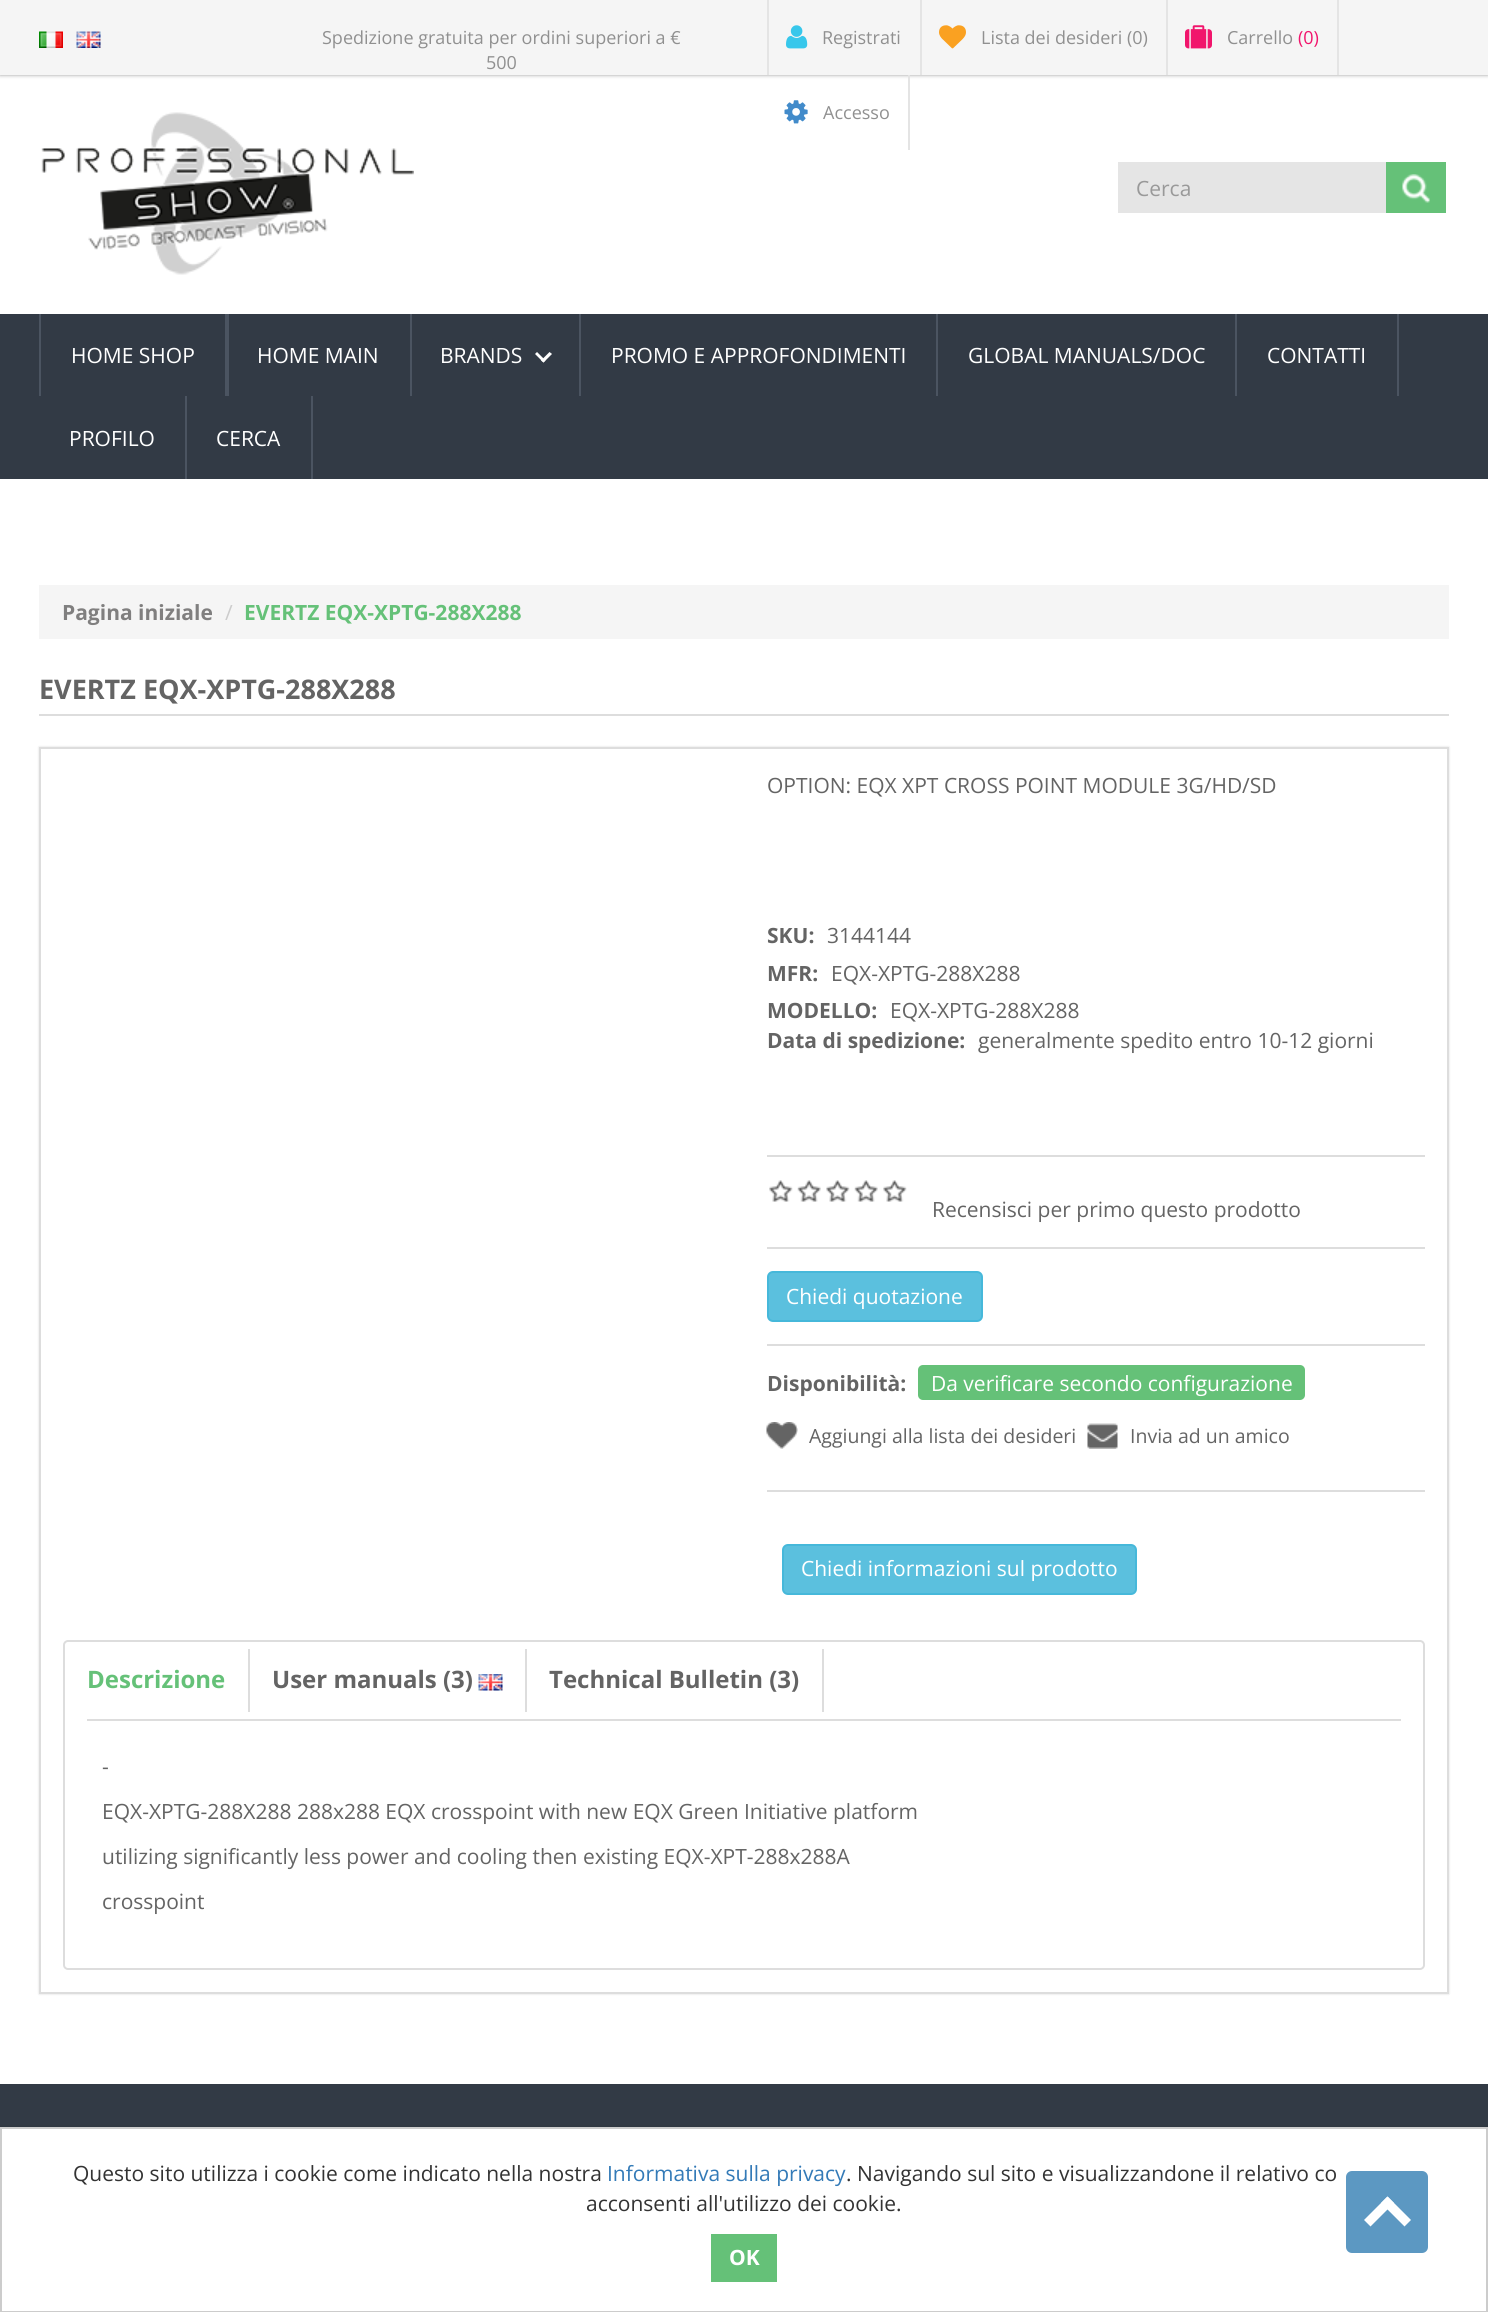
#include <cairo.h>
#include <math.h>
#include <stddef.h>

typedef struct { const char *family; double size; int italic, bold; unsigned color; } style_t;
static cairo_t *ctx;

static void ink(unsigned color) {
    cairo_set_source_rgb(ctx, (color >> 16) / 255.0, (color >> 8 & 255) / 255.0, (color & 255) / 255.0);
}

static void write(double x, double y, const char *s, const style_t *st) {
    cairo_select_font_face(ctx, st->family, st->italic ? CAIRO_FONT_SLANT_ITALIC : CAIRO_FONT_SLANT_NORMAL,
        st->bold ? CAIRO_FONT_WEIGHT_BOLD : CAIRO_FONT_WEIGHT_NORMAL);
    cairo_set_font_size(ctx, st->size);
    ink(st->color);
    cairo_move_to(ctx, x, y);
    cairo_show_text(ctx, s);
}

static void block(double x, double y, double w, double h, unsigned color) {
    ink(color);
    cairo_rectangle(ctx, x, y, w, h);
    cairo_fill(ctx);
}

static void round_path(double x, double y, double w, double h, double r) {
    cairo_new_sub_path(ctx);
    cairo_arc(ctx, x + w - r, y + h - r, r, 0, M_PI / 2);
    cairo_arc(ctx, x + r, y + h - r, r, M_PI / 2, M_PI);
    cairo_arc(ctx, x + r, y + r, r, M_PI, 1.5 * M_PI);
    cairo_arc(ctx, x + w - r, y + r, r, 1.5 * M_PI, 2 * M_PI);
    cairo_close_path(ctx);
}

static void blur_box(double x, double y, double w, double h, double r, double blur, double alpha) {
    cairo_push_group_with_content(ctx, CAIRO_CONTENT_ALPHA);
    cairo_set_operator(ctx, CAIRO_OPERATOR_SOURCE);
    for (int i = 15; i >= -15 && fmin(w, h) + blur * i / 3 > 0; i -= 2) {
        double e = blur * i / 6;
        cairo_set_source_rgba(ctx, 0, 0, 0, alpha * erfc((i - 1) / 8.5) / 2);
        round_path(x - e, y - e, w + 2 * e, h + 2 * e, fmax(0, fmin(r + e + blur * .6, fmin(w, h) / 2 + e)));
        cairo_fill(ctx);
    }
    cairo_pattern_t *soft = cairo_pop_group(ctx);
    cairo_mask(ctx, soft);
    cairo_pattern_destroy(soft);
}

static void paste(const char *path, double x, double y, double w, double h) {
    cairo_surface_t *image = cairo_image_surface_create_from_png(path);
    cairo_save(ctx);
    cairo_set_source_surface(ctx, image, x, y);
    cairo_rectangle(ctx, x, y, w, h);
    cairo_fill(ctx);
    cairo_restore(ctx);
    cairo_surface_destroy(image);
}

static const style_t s1 = {"Open Sans", 18, 0, 0, 0x909090};
static const style_t s2 = {"Open Sans", 18, 0, 0, 0xf1156c};
static const style_t s3 = {"Open Sans", 21, 0, 0, 0x999999};
static const style_t s4 = {"Open Sans", 21, 0, 0, 0xffffff};
static const style_t s5 = {"Open Sans", 21, 0, 1, 0x807f7f};
static const style_t s6 = {"Open Sans", 21, 0, 0, 0xcccccc};
static const style_t s7 = {"Open Sans", 21, 0, 1, 0x65c178};
static const style_t s8 = {"Open Sans", 27, 0, 1, 0x646464};
static const style_t s9 = {"Open Sans", 21, 0, 0, 0x646464};
static const style_t s10 = {"Open Sans", 21, 0, 1, 0x646464};
static const style_t s11 = {"Open Sans", 19.5, 0, 0, 0x646464};
static const style_t s12 = {"Open Sans", 24, 0, 1, 0x65c178};
static const style_t s13 = {"Open Sans", 24, 0, 1, 0x646464};
static const style_t s14 = {"Open Sans", 21, 0, 0, 0x333333};
static const style_t s15 = {"Open Sans", 21, 0, 0, 0x337ab7};
static const style_t s16 = {"Open Sans", 21, 0, 1, 0xffffff};

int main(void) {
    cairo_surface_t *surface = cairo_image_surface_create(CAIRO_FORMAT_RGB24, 1488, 2312);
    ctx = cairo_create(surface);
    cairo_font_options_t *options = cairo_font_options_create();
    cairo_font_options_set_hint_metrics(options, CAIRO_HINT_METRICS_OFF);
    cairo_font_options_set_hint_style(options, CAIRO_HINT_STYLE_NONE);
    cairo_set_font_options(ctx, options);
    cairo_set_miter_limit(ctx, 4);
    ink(0xffffff);
    cairo_paint(ctx);
    ink(0x999999);
    blur_box(0, 0, 1488, 75, 0, 2, 1);
    block(0, 0, 1488, 75, 0xf5f5f5);
    paste("pic1.png", 39, 31, 24, 17);
    paste("pic2.png", 76, 31, 25, 17);
    write(322, 44, "Spedizione gratuita per ordini superiori a €", &s1);
    write(486, 69, "500", &s1);
    block(920, 0, 2, 75, 0xe4e4e4);
    block(767, 0, 2, 75, 0xe4e4e4);
    paste("pic3.png", 786, 25, 22, 24);
    write(822, 44, "Registrati", &s1);
    block(1166, 0, 2, 75, 0xe4e4e4);
    paste("pic4.png", 939, 25, 27, 24);
    write(981, 44, "Lista dei desideri (0)", &s1);
    block(1337, 0, 2, 75, 0xe4e4e4);
    paste("pic5.png", 1185, 25, 27, 24);
    write(1227, 44, "Carrello", &s1);
    write(1298, 44, "(0)", &s2);
    block(908, 75, 2, 75, 0xe4e4e4);
    paste("pic6.png", 784, 100, 24, 24);
    write(823, 119, "Accesso", &s1);
    paste("pic7.png", 41, 112, 373, 163);
    block(1118, 162, 268, 51, 0xe5e5e5);
    write(1136, 196, "Cerca", &s3);
    block(1386, 162, 60, 51, 0x65c178);
    paste("pic8.png", 1402, 174, 28, 29);
    block(0, 314, 1488, 165, 0x323a45);
    block(225, 314, 4, 82, 0x4b5461);
    block(39, 314, 2, 82, 0x4b5461);
    write(71, 363, "HOME SHOP", &s4);
    block(410, 314, 2, 82, 0x4b5461);
    write(257, 363, "HOME MAIN", &s4);
    block(579, 314, 2, 82, 0x4b5461);
    write(440, 363, "BRANDS", &s4);
    cairo_new_path(ctx);
    cairo_move_to(ctx, 549.5, 352);
    cairo_line_to(ctx, 552, 354);
    cairo_line_to(ctx, 543.5, 362.5);
    cairo_line_to(ctx, 541, 360.5);
    cairo_close_path(ctx);
    cairo_fill(ctx);
    cairo_new_path(ctx);
    cairo_move_to(ctx, 537, 352);
    cairo_line_to(ctx, 545.5, 360.5);
    cairo_line_to(ctx, 543.5, 362.5);
    cairo_line_to(ctx, 535, 354);
    cairo_close_path(ctx);
    cairo_fill(ctx);
    block(936, 314, 2, 82, 0x4b5461);
    write(611, 363, "PROMO E APPROFONDIMENTI", &s4);
    block(1235, 314, 2, 82, 0x4b5461);
    write(968, 363, "GLOBAL MANUALS/DOC", &s4);
    block(1397, 314, 2, 82, 0x4b5461);
    write(1267, 363, "CONTATTI", &s4);
    block(185, 396, 2, 83, 0x4b5461);
    write(69, 446, "PROFILO", &s4);
    block(311, 396, 2, 83, 0x4b5461);
    write(216, 446, "CERCA", &s4);
    block(39, 585, 1410, 54, 0xf5f5f5);
    write(62, 620, "Pagina iniziale", &s5);
    write(225, 620, "/", &s6);
    write(244, 620, "EVERTZ EQX-XPTG-288X288", &s7);
    block(39, 714, 1410, 2, 0xdddddd);
    write(39, 699, "EVERTZ EQX-XPTG-288X288", &s8);
    ink(0x000000);
    blur_box(39, 747, 1410, 1247, 0, 1, 0.15);
    ink(0xffffff);
    cairo_rectangle(ctx, 40, 748, 1408, 1245);
    cairo_fill_preserve(ctx);
    ink(0xdddddd);
    cairo_stroke(ctx);
    write(767, 793, "OPTION: EQX XPT CROSS POINT MODULE 3G/HD/SD", &s9);
    write(767, 943, "SKU:", &s10);
    write(827, 943, "3144144", &s9);
    write(767, 981, "MFR:", &s10);
    write(831, 981, "EQX-XPTG-288X288", &s9);
    write(767, 1018, "MODELLO:", &s10);
    write(890, 1018, "EQX-XPTG-288X288", &s9);
    write(767, 1048, "Data di spedizione:", &s10);
    write(978, 1048, "generalmente spedito entro 10-12 giorni", &s9);
    block(767, 1155, 658, 2, 0xdddddd);
    block(767, 1247, 658, 2, 0xdddddd);
    paste("pic9.png", 769, 1180, 138, 22);
    write(932, 1217, "Recensisci per primo questo prodotto", &s9);
    block(767, 1344, 658, 2, 0xdddddd);
    ink(0x5bc0de);
    round_path(768, 1272, 214, 49, 5);
    cairo_fill_preserve(ctx);
    ink(0x46b8da);
    cairo_stroke(ctx);
    write(786, 1304, "Chiedi quotazione", &s4);
    write(767, 1391, "Disponibilità:", &s10);
    ink(0x65c178);
    round_path(918, 1365, 387, 35, 5);
    cairo_fill(ctx);
    write(931, 1391, "Da verificare secondo configurazione", &s4);
    block(767, 1490, 658, 2, 0xdddddd);
    paste("pic10.png", 766, 1422, 32, 27);
    write(809, 1443, "Aggiungi alla lista dei desideri", &s11);
    paste("pic11.png", 1087, 1423, 31, 26);
    write(1130, 1443, "Invia ad un amico", &s11);
    ink(0x5bc0de);
    round_path(783, 1545, 353, 49, 5);
    cairo_fill_preserve(ctx);
    ink(0x46b8da);
    cairo_stroke(ctx);
    write(801, 1576, "Chiedi informazioni sul prodotto", &s4);
    round_path(64, 1641, 1360, 328, 4);
    ink(0xdddddd);
    cairo_stroke(ctx);
    block(87, 1719, 1314, 2, 0xdddddd);
    block(248, 1649, 2, 63, 0xdddddd);
    write(87, 1688, "Descrizione", &s12);
    block(525, 1649, 2, 63, 0xdddddd);
    write(272, 1688, "User manuals (3)", &s13);
    paste("pic12.png", 478, 1674, 25, 17);
    block(822, 1649, 2, 63, 0xdddddd);
    write(549, 1688, "Technical Bulletin (3)", &s13);
    write(102, 1774, "-", &s9);
    write(102, 1819, "EQX-XPTG-288X288 288x288 EQX crosspoint with new EQX Green Initiative platform", &s9);
    write(102, 1864, "utilizing significantly less power and cooling then existing EQX-XPT-288x288A", &s9);
    write(102, 1909, "crosspoint", &s9);
    block(0, 2084, 1488, 43, 0x323a45);
    ink(0x000000);
    blur_box(0, 2127, 1488, 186, 0, 1.5, 0.15);
    ink(0xffffff);
    cairo_rectangle(ctx, 1, 2128, 1486, 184);
    cairo_fill_preserve(ctx);
    ink(0xcccccc);
    cairo_stroke(ctx);
    write(73, 2181, "Questo sito utilizza i cookie come indicato nella nostra", &s14);
    write(607, 2181, "Informativa sulla privacy", &s15);
    write(846, 2181, ". Navigando sul sito e visualizzandone il relativo co", &s14);
    write(586, 2211, "acconsenti all'utilizzo dei cookie.", &s14);
    block(711, 2234, 66, 48, 0x65c178);
    write(729, 2265, "OK", &s16);
    cairo_set_source_rgba(ctx, 0.204, 0.498, 0.702, 0.8);
    round_path(1346, 2171, 82, 82, 6);
    cairo_fill(ctx);
    ink(0xffffff);
    cairo_new_path(ctx);
    cairo_move_to(ctx, 1364, 2220);
    cairo_line_to(ctx, 1387.5, 2196.5);
    cairo_line_to(ctx, 1394, 2203);
    cairo_line_to(ctx, 1370.5, 2226.5);
    cairo_close_path(ctx);
    cairo_fill(ctx);
    cairo_new_path(ctx);
    cairo_move_to(ctx, 1381, 2203);
    cairo_line_to(ctx, 1387.5, 2196.5);
    cairo_line_to(ctx, 1411, 2220);
    cairo_line_to(ctx, 1404.5, 2226.5);
    cairo_close_path(ctx);
    cairo_fill(ctx);
    cairo_surface_write_to_png(surface, "screenshot.png");
    cairo_font_options_destroy(options);
    cairo_destroy(ctx);
    cairo_surface_destroy(surface);
    return 0;
}
